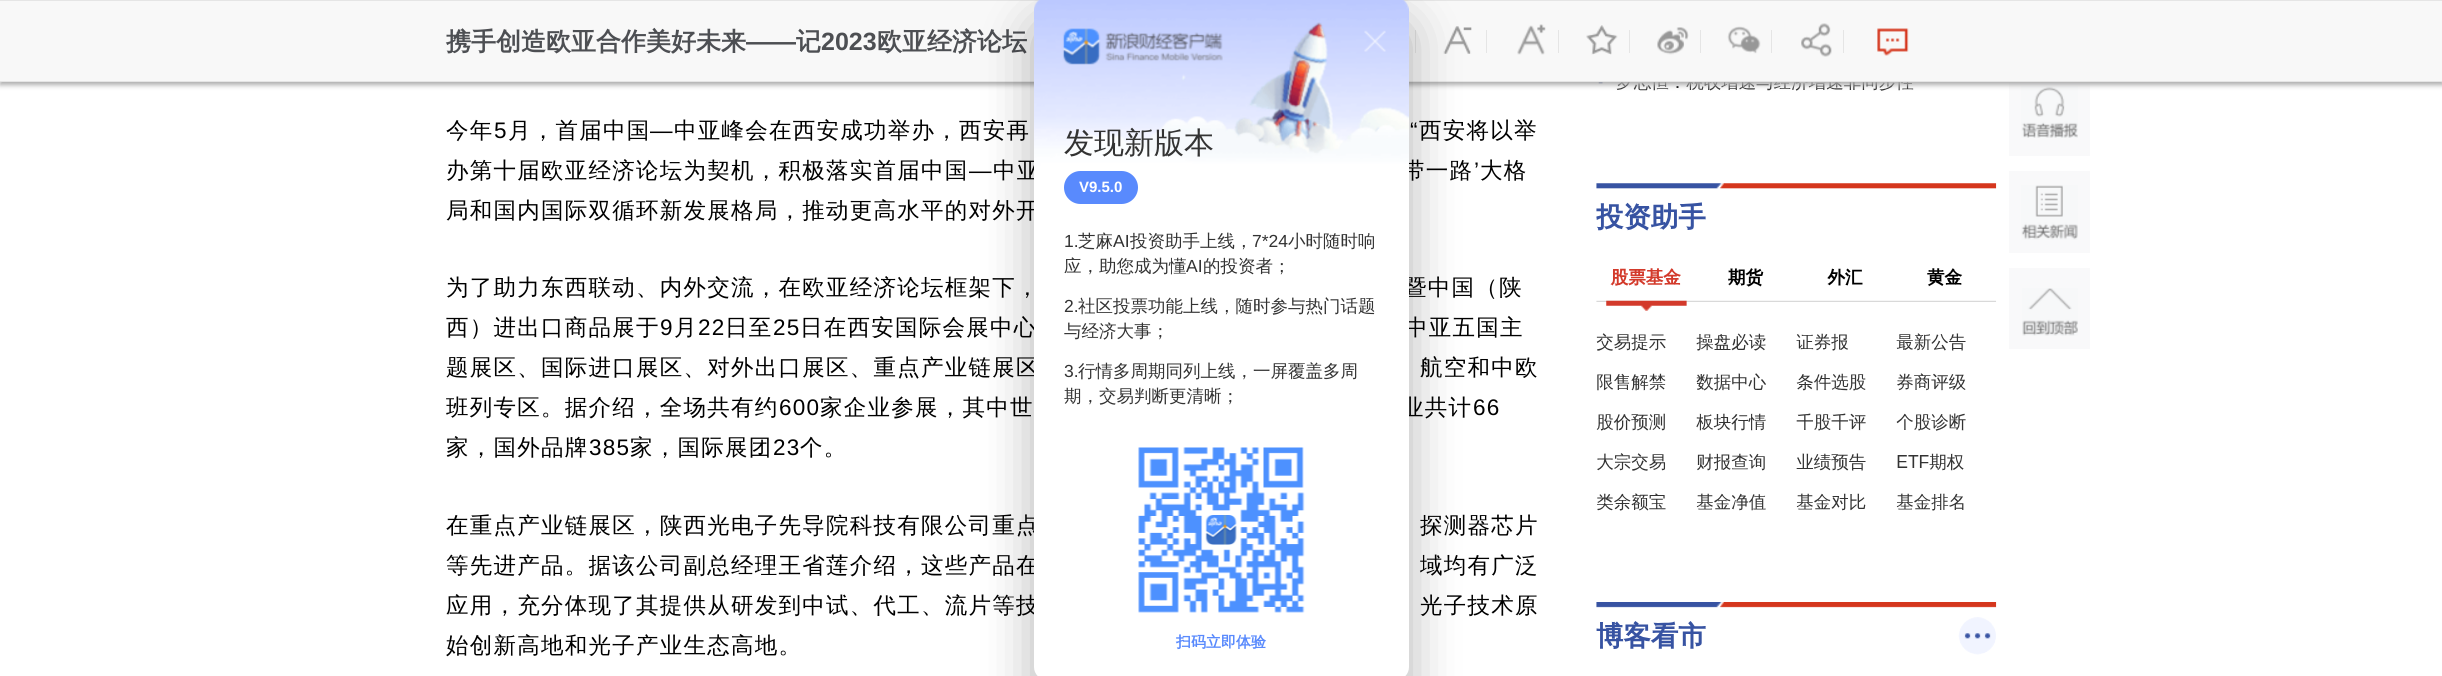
#include <cairo.h>
#include <math.h>
#include <stddef.h>

typedef struct { const char *family; double size; int italic, bold; unsigned color; } style_t;
static cairo_t *ctx;

static void ink(unsigned color) {
    cairo_set_source_rgb(ctx, (color >> 16) / 255.0, (color >> 8 & 255) / 255.0, (color & 255) / 255.0);
}

static void write(double x, double y, const char *s, const style_t *st) {
    cairo_select_font_face(ctx, st->family, st->italic ? CAIRO_FONT_SLANT_ITALIC : CAIRO_FONT_SLANT_NORMAL,
        st->bold ? CAIRO_FONT_WEIGHT_BOLD : CAIRO_FONT_WEIGHT_NORMAL);
    cairo_set_font_size(ctx, st->size);
    ink(st->color);
    cairo_move_to(ctx, x, y);
    cairo_show_text(ctx, s);
}

static void write_spaced(double x, double y, const char *s, double letter, double word) {
    cairo_move_to(ctx, x, y);
    while (*s) {
        char ch[5] = {0};
        int n = 0;
        do ch[n++] = *s++; while ((*s & 0xC0) == 0x80);
        cairo_show_text(ctx, ch);
        cairo_rel_move_to(ctx, letter + word * (*ch == ' '), 0);
    }
}

static void block(double x, double y, double w, double h, unsigned color) {
    ink(color);
    cairo_rectangle(ctx, x, y, w, h);
    cairo_fill(ctx);
}

static void round_path(double x, double y, double w, double h, double r) {
    cairo_new_sub_path(ctx);
    cairo_arc(ctx, x + w - r, y + h - r, r, 0, M_PI / 2);
    cairo_arc(ctx, x + r, y + h - r, r, M_PI / 2, M_PI);
    cairo_arc(ctx, x + r, y + r, r, M_PI, 1.5 * M_PI);
    cairo_arc(ctx, x + w - r, y + r, r, 1.5 * M_PI, 2 * M_PI);
    cairo_close_path(ctx);
}

static void blur_box(double x, double y, double w, double h, double r, double blur, double alpha) {
    cairo_push_group_with_content(ctx, CAIRO_CONTENT_ALPHA);
    cairo_set_operator(ctx, CAIRO_OPERATOR_SOURCE);
    for (int i = 15; i >= -15 && fmin(w, h) + blur * i / 3 > 0; i -= 2) {
        double e = blur * i / 6;
        cairo_set_source_rgba(ctx, 0, 0, 0, alpha * erfc((i - 1) / 8.5) / 2);
        round_path(x - e, y - e, w + 2 * e, h + 2 * e, fmax(0, fmin(r + e + blur * .6, fmin(w, h) / 2 + e)));
        cairo_fill(ctx);
    }
    cairo_pattern_t *soft = cairo_pop_group(ctx);
    cairo_mask(ctx, soft);
    cairo_pattern_destroy(soft);
}

static void paste(const char *path, double x, double y, double w, double h) {
    cairo_surface_t *image = cairo_image_surface_create_from_png(path);
    cairo_save(ctx);
    cairo_set_source_surface(ctx, image, x, y);
    cairo_rectangle(ctx, x, y, w, h);
    cairo_fill(ctx);
    cairo_restore(ctx);
    cairo_surface_destroy(image);
}

static const style_t s1 = {"WenQuanYi Zen Hei", 25, 0, 1, 0x4d4f53};
static const style_t s2 = {"Liberation Sans", 25, 0, 1, 0x4d4f53};
static const style_t s3 = {"WenQuanYi Zen Hei Medium", 30, 0, 0, 0x333333};
static const style_t s4 = {"Liberation Sans", 15, 0, 1, 0xffffff};
static const style_t s5 = {"Liberation Sans", 17.5, 0, 0, 0x333333};
static const style_t s6 = {"WenQuanYi Zen Hei Medium", 17.5, 0, 0, 0x333333};
static const style_t s7 = {"WenQuanYi Zen Hei", 15, 0, 1, 0x598afd};

int main(void) {
    cairo_surface_t *surface = cairo_image_surface_create(CAIRO_FORMAT_RGB24, 2442, 676);
    ctx = cairo_create(surface);
    cairo_font_options_t *options = cairo_font_options_create();
    cairo_font_options_set_hint_metrics(options, CAIRO_HINT_METRICS_OFF);
    cairo_font_options_set_hint_style(options, CAIRO_HINT_STYLE_NONE);
    cairo_set_font_options(ctx, options);
    cairo_set_miter_limit(ctx, 4);
    ink(0xffffff);
    cairo_paint(ctx);
    paste("pic8.png", 1598, 82, 316, 9);
    block(2009, 82, 81, 74, 0xf9f9fa);
    paste("pic11.png", 2021, 86, 57, 52);
    ink(0xacacac);
    blur_box(0, 3, 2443, 82, 0, 2.5, 1);
    block(0, 1, 2442, 80, 0xf8f8f8);
    block(0, 0, 2442, 1, 0xe5e5e5);
    block(0, 81, 2442, 1, 0xe5e5e5);
    write(446, 50, "携手创造欧亚合作美好未来", &s1);
    write(746, 50, "——", &s2);
    write(796, 50, "记", &s1);
    write(821, 50, "2023", &s2);
    write(877, 50, "欧亚经济论坛", &s1);
    block(1415, 30, 1, 23, 0xe5e5e5);
    paste("pic1.png", 1443, 26, 29, 28);
    block(1486, 30, 1, 23, 0xe5e5e5);
    paste("pic2.png", 1517, 24, 29, 31);
    block(1558, 30, 1, 23, 0xe5e5e5);
    paste("pic3.png", 1586, 25, 32, 30);
    block(1629, 30, 1, 23, 0xe5e5e5);
    paste("pic4.png", 1657, 27, 32, 28);
    block(1700, 30, 1, 23, 0xe5e5e5);
    paste("pic5.png", 1727, 26, 34, 28);
    block(1771, 30, 1, 23, 0xe5e5e5);
    paste("pic6.png", 1801, 23, 31, 34);
    block(1843, 30, 1, 23, 0xe5e5e5);
    paste("pic7.png", 1877, 28, 32, 28);
    cairo_select_font_face(ctx, "WenQuanYi Zen Hei Medium", CAIRO_FONT_SLANT_NORMAL, CAIRO_FONT_WEIGHT_NORMAL);
    cairo_set_font_size(ctx, 22.5);
    ink(0x000000);
    write_spaced(446, 138, "今年", 1.25, 0);
    cairo_select_font_face(ctx, "Liberation Sans", CAIRO_FONT_SLANT_NORMAL, CAIRO_FONT_WEIGHT_NORMAL);
    write_spaced(494, 138, "5", 1.25, 0);
    cairo_select_font_face(ctx, "WenQuanYi Zen Hei Medium", CAIRO_FONT_SLANT_NORMAL, CAIRO_FONT_WEIGHT_NORMAL);
    write_spaced(508, 138, "月，首届中国", 1.25, 0);
    write_spaced(674, 138, "中亚峰会在西安成功举办，西安再", 1.25, 0);
    cairo_select_font_face(ctx, "Liberation Sans", CAIRO_FONT_SLANT_NORMAL, CAIRO_FONT_WEIGHT_NORMAL);
    write_spaced(1410, 138, "“", 1.25, 0);
    cairo_select_font_face(ctx, "WenQuanYi Zen Hei Medium", CAIRO_FONT_SLANT_NORMAL, CAIRO_FONT_WEIGHT_NORMAL);
    write_spaced(1419, 138, "西安将以举", 1.25, 0);
    cairo_select_font_face(ctx, "Liberation Sans", CAIRO_FONT_SLANT_NORMAL, CAIRO_FONT_WEIGHT_NORMAL);
    write_spaced(650, 138, "—", 1.25, 0);
    cairo_select_font_face(ctx, "WenQuanYi Zen Hei Medium", CAIRO_FONT_SLANT_NORMAL, CAIRO_FONT_WEIGHT_NORMAL);
    write_spaced(446, 178, "办第十届欧亚经济论坛为契机，积极落实首届中国", 1.25, 0);
    write_spaced(993, 178, "中亚", 1.25, 0);
    write_spaced(1402, 178, "带一路", 1.25, 0);
    cairo_select_font_face(ctx, "Liberation Sans", CAIRO_FONT_SLANT_NORMAL, CAIRO_FONT_WEIGHT_NORMAL);
    write_spaced(1474, 178, "’", 1.25, 0);
    cairo_select_font_face(ctx, "WenQuanYi Zen Hei Medium", CAIRO_FONT_SLANT_NORMAL, CAIRO_FONT_WEIGHT_NORMAL);
    write_spaced(1480, 178, "大格", 1.25, 0);
    cairo_select_font_face(ctx, "Liberation Sans", CAIRO_FONT_SLANT_NORMAL, CAIRO_FONT_WEIGHT_NORMAL);
    write_spaced(969, 178, "—", 1.25, 0);
    cairo_select_font_face(ctx, "WenQuanYi Zen Hei Medium", CAIRO_FONT_SLANT_NORMAL, CAIRO_FONT_WEIGHT_NORMAL);
    write_spaced(446, 218, "局和国内国际双循环新发展格局，推动更高水平的对外开", 1.25, 0);
    write_spaced(446, 295, "为了助力东西联动、内外交流，在欧亚经济论坛框架下，", 1.25, 0);
    write_spaced(1404, 295, "暨中国（陕", 1.25, 0);
    write_spaced(446, 335, "西）进出口商品展于", 1.25, 0);
    cairo_select_font_face(ctx, "Liberation Sans", CAIRO_FONT_SLANT_NORMAL, CAIRO_FONT_WEIGHT_NORMAL);
    write_spaced(660, 335, "9", 1.25, 0);
    cairo_select_font_face(ctx, "WenQuanYi Zen Hei Medium", CAIRO_FONT_SLANT_NORMAL, CAIRO_FONT_WEIGHT_NORMAL);
    write_spaced(674, 335, "月", 1.25, 0);
    cairo_select_font_face(ctx, "Liberation Sans", CAIRO_FONT_SLANT_NORMAL, CAIRO_FONT_WEIGHT_NORMAL);
    write_spaced(698, 335, "22", 1.25, 0);
    cairo_select_font_face(ctx, "WenQuanYi Zen Hei Medium", CAIRO_FONT_SLANT_NORMAL, CAIRO_FONT_WEIGHT_NORMAL);
    write_spaced(725, 335, "日至", 1.25, 0);
    cairo_select_font_face(ctx, "Liberation Sans", CAIRO_FONT_SLANT_NORMAL, CAIRO_FONT_WEIGHT_NORMAL);
    write_spaced(773, 335, "25", 1.25, 0);
    cairo_select_font_face(ctx, "WenQuanYi Zen Hei Medium", CAIRO_FONT_SLANT_NORMAL, CAIRO_FONT_WEIGHT_NORMAL);
    write_spaced(800, 335, "日在西安国际会展中心", 1.25, 0);
    write_spaced(1405, 335, "中亚五国主", 1.25, 0);
    write_spaced(446, 375, "题展区、国际进口展区、对外出口展区、重点产业链展区", 1.25, 0);
    write_spaced(1420, 375, "航空和中欧", 1.25, 0);
    write_spaced(446, 415, "班列专区。据介绍，全场共有约", 1.25, 0);
    cairo_select_font_face(ctx, "Liberation Sans", CAIRO_FONT_SLANT_NORMAL, CAIRO_FONT_WEIGHT_NORMAL);
    write_spaced(779, 415, "600", 1.25, 0);
    cairo_select_font_face(ctx, "WenQuanYi Zen Hei Medium", CAIRO_FONT_SLANT_NORMAL, CAIRO_FONT_WEIGHT_NORMAL);
    write_spaced(820, 415, "家企业参展，其中世", 1.25, 0);
    write_spaced(1401, 415, "业共计", 1.25, 0);
    cairo_select_font_face(ctx, "Liberation Sans", CAIRO_FONT_SLANT_NORMAL, CAIRO_FONT_WEIGHT_NORMAL);
    write_spaced(1473, 415, "66", 1.25, 0);
    cairo_select_font_face(ctx, "WenQuanYi Zen Hei Medium", CAIRO_FONT_SLANT_NORMAL, CAIRO_FONT_WEIGHT_NORMAL);
    write_spaced(446, 455, "家，国外品牌", 1.25, 0);
    cairo_select_font_face(ctx, "Liberation Sans", CAIRO_FONT_SLANT_NORMAL, CAIRO_FONT_WEIGHT_NORMAL);
    write_spaced(589, 455, "385", 1.25, 0);
    cairo_select_font_face(ctx, "WenQuanYi Zen Hei Medium", CAIRO_FONT_SLANT_NORMAL, CAIRO_FONT_WEIGHT_NORMAL);
    write_spaced(630, 455, "家，国际展团", 1.25, 0);
    cairo_select_font_face(ctx, "Liberation Sans", CAIRO_FONT_SLANT_NORMAL, CAIRO_FONT_WEIGHT_NORMAL);
    write_spaced(773, 455, "23", 1.25, 0);
    cairo_select_font_face(ctx, "WenQuanYi Zen Hei Medium", CAIRO_FONT_SLANT_NORMAL, CAIRO_FONT_WEIGHT_NORMAL);
    write_spaced(800, 455, "个。", 1.25, 0);
    write_spaced(446, 533, "在重点产业链展区，陕西光电子先导院科技有限公司重点", 1.25, 0);
    write_spaced(1420, 533, "探测器芯片", 1.25, 0);
    write_spaced(446, 573, "等先进产品。据该公司副总经理王省莲介绍，这些产品在", 1.25, 0);
    write_spaced(1420, 573, "域均有广泛", 1.25, 0);
    write_spaced(446, 613, "应用，充分体现了其提供从研发到中试、代工、流片等技", 1.25, 0);
    write_spaced(1420, 613, "光子技术原", 1.25, 0);
    write_spaced(446, 653, "始创新高地和光子产业生态高地。", 1.25, 0);
    paste("pic9.png", 1596, 183, 401, 328);
    paste("pic10.png", 1596, 602, 401, 53);
    block(2009, 171, 81, 82, 0xf9f9fa);
    paste("pic12.png", 2021, 185, 57, 55);
    block(2009, 268, 81, 81, 0xf9f9fa);
    paste("pic13.png", 2022, 288, 56, 48);
    ink(0x000000);
    blur_box(1034, 23, 375, 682, 13, 25, 0.3);
    paste("pic14.png", 1034, 0, 375, 235);
    paste("pic15.png", 1364, 30, 22, 22);
    write(1064, 153, "发现新版本", &s3);
    ink(0x598afd);
    round_path(1064, 171, 74, 33, 16.5);
    cairo_fill(ctx);
    write(1079, 192, "V9.5.0", &s4);
    block(1034, 235, 375, 214, 0xffffff);
    write(1064, 247, "1.", &s5);
    write(1078, 247, "芝麻", &s6);
    write(1113, 247, "AI", &s5);
    write(1130, 247, "投资助手上线，", &s6);
    write(1252, 247, "7*24", &s5);
    write(1288, 247, "小时随时响", &s6);
    write(1064, 272, "应，助您成为懂", &s6);
    write(1186, 272, "AI", &s5);
    write(1203, 272, "的投资者；", &s6);
    write(1064, 312, "2.", &s5);
    write(1078, 312, "社区投票功能上线，随时参与热门话题", &s6);
    write(1064, 337, "与经济大事；", &s6);
    write(1064, 377, "3.", &s5);
    write(1078, 377, "行情多周期同列上线，一屏覆盖多周", &s6);
    write(1064, 402, "期，交易判断更清晰；", &s6);
    ink(0xffffff);
    round_path(1034, 436, 375, 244, 13);
    cairo_fill(ctx);
    paste("pic16.png", 1138, 447, 167, 166);
    write(1176, 647, "扫码立即体验", &s7);
    cairo_surface_write_to_png(surface, "screenshot.png");
    cairo_font_options_destroy(options);
    cairo_destroy(ctx);
    cairo_surface_destroy(surface);
    return 0;
}
